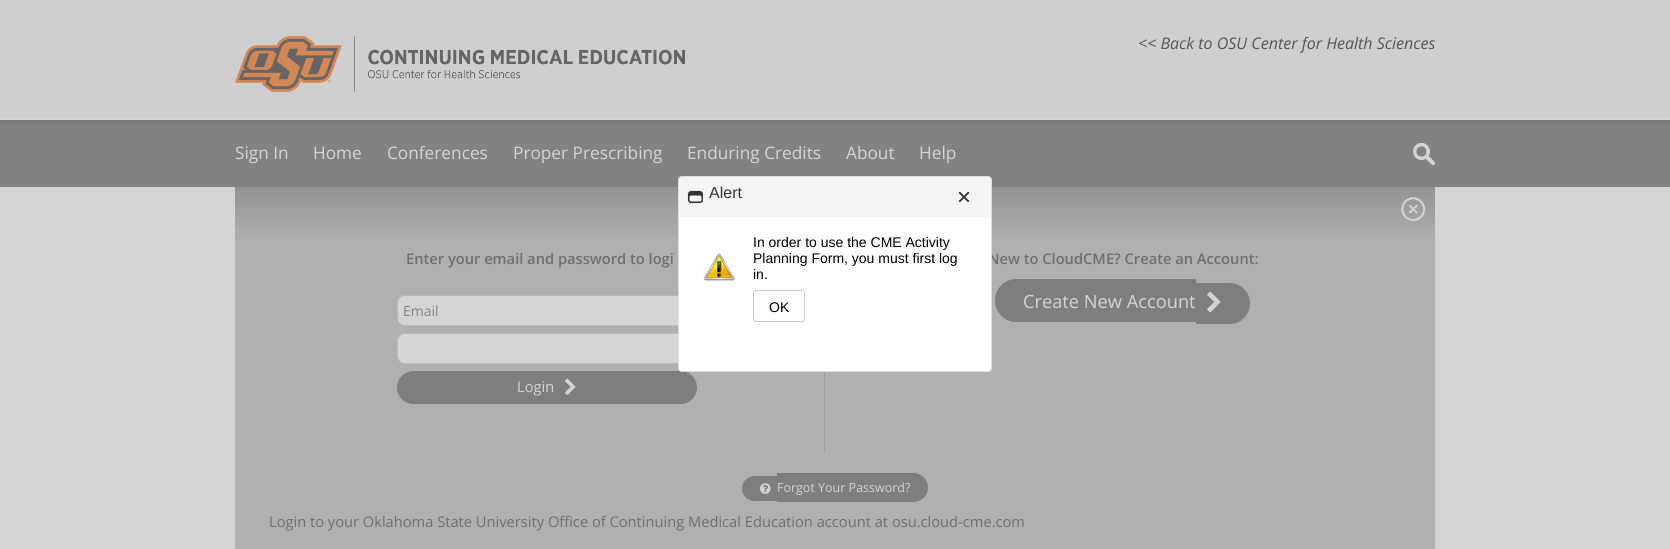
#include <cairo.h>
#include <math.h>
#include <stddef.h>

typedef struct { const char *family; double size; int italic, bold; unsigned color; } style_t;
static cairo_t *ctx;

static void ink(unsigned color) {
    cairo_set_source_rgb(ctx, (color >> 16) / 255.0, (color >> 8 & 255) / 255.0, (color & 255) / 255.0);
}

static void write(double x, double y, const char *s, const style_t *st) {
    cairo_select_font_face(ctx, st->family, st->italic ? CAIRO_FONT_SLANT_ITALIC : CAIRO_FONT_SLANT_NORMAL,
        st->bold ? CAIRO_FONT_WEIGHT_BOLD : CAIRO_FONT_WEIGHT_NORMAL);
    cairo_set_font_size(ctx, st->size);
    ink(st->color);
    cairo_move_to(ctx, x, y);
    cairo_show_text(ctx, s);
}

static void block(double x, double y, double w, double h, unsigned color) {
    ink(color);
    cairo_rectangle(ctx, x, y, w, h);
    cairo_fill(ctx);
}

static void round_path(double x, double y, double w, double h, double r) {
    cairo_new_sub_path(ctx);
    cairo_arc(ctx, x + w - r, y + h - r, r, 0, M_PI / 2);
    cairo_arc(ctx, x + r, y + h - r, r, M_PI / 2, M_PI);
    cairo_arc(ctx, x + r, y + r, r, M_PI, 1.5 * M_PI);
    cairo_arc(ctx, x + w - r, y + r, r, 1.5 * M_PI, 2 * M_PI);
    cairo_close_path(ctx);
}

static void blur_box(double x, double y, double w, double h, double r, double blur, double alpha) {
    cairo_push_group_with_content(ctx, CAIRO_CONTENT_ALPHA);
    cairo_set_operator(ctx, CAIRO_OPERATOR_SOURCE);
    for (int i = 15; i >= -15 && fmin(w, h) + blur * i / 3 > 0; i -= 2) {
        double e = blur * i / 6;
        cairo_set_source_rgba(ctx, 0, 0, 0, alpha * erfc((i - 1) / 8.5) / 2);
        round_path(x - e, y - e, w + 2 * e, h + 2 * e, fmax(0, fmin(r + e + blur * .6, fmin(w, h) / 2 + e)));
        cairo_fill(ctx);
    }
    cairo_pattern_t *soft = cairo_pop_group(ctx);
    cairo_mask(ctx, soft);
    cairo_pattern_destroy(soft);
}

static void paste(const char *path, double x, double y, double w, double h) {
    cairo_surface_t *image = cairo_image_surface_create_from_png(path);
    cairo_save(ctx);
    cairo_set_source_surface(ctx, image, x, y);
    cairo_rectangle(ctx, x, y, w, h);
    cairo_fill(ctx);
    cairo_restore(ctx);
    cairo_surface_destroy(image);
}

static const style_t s1 = {"Open Sans", 16, 1, 0, 0x555555};
static const style_t s2 = {"Open Sans", 17.25, 0, 0, 0xd5d5d5};
static const style_t s3 = {"Open Sans SemiBold", 14.67, 0, 0, 0x6f6f6f};
static const style_t s4 = {"Open Sans", 14, 0, 0, 0x808080};
static const style_t s5 = {"Open Sans", 14.67, 0, 0, 0xd5d5d5};
static const style_t s6 = {"Open Sans", 18.25, 0, 0, 0xd5d5d5};
static const style_t s7 = {"Open Sans", 12.5, 0, 0, 0xd5d5d5};
static const style_t s8 = {"Open Sans", 14.67, 0, 0, 0x6f6f6f};
static const style_t s9 = {"Liberation Sans", 16, 0, 0, 0x333333};
static const style_t s10 = {"Liberation Sans", 14, 0, 0, 0x000000};

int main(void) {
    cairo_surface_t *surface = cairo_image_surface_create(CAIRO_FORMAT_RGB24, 1670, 549);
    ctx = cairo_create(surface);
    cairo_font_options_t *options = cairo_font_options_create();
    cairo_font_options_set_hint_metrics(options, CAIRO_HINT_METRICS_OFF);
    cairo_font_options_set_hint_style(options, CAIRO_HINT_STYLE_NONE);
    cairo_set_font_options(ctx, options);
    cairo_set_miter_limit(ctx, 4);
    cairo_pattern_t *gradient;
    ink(0xd5d5d5);
    cairo_paint(ctx);
    block(0, 120, 1670, 67, 0x828282);
    ink(0x555555);
    blur_box(0, 3, 1670, 120, 0, 2, 0.25);
    block(0, 0, 1670, 119, 0xcfcfcf);
    block(0, 119, 1670, 1, 0xd5d5d5);
    paste("pic1.png", 235, 36, 450, 56);
    write(1138, 49, "<< Back to OSU Center for Health Sciences", &s1);
    write(235, 159, "Sign In", &s2);
    write(313, 159, "Home", &s2);
    write(387, 159, "Conferences", &s2);
    write(513, 159, "Proper Prescribing", &s2);
    write(687, 159, "Enduring Credits", &s2);
    write(846, 159, "About", &s2);
    write(919, 159, "Help", &s2);
    paste("pic2.png", 1413, 143, 22, 22);
    gradient = cairo_pattern_create_linear(835, 187, 835, 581);
    cairo_pattern_add_color_stop_rgba(gradient, 0, 0.573, 0.573, 0.573, 1);
    cairo_pattern_add_color_stop_rgba(gradient, 0.14, 0.69, 0.69, 0.69, 1);
    cairo_set_source(ctx, gradient);
    cairo_pattern_destroy(gradient);
    cairo_rectangle(ctx, 235, 187, 1200, 362);
    cairo_fill(ctx);
    gradient = cairo_pattern_create_linear(835, 187, 835, 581);
    cairo_pattern_add_color_stop_rgba(gradient, 0, 0.525, 0.525, 0.525, 1);
    cairo_pattern_add_color_stop_rgba(gradient, 0.14, 0.62, 0.62, 0.62, 1);
    cairo_set_source(ctx, gradient);
    cairo_pattern_destroy(gradient);
    cairo_rectangle(ctx, 824, 372, 1, 81);
    cairo_fill(ctx);
    paste("pic3.png", 1401, 197, 25, 25);
    write(406, 264, "Enter your email and password to logi", &s3);
    ink(0xd5d5d5);
    round_path(397.5, 295.5, 299, 30, 7.5);
    cairo_fill_preserve(ctx);
    ink(0xb9b9b9);
    cairo_set_line_width(ctx, 1);
    cairo_stroke(ctx);
    write(403, 316, "Email", &s4);
    ink(0xd5d5d5);
    round_path(397.5, 333.5, 299, 30, 7.5);
    cairo_fill_preserve(ctx);
    ink(0xb9b9b9);
    cairo_stroke(ctx);
    ink(0x7e7e7e);
    round_path(397, 371, 300, 33, 16.5);
    cairo_fill(ctx);
    write(517, 392, "Login", &s5);
    paste("pic4.png", 565, 378, 11, 17);
    write(988, 264, "New to CloudCME? Create an Account:", &s3);
    ink(0x7e7e7e);
    cairo_new_path(ctx);
    cairo_move_to(ctx, 1016.5, 279);
    cairo_line_to(ctx, 1196, 279);
    cairo_line_to(ctx, 1196, 322);
    cairo_line_to(ctx, 1016.5, 322);
    cairo_curve_to(ctx, 1004.5, 322, 995, 312.5, 995, 300.5);
    cairo_curve_to(ctx, 995, 288.5, 1004.5, 279, 1016.5, 279);
    cairo_close_path(ctx);
    cairo_fill(ctx);
    cairo_new_path(ctx);
    cairo_move_to(ctx, 1196, 283);
    cairo_line_to(ctx, 1229.5, 283);
    cairo_curve_to(ctx, 1241, 283, 1250, 292, 1250, 303.5);
    cairo_curve_to(ctx, 1250, 315, 1241, 324, 1229.5, 324);
    cairo_line_to(ctx, 1196, 324);
    cairo_close_path(ctx);
    cairo_fill(ctx);
    write(1023, 308, "Create New Account", &s6);
    paste("pic5.png", 1207, 291, 14, 22);
    ink(0x7e7e7e);
    cairo_new_path(ctx);
    cairo_move_to(ctx, 754.5, 476);
    cairo_line_to(ctx, 777, 476);
    cairo_line_to(ctx, 777, 501);
    cairo_line_to(ctx, 754.5, 501);
    cairo_curve_to(ctx, 747.5, 501, 742, 495.5, 742, 488.5);
    cairo_curve_to(ctx, 742, 481.5, 747.5, 476, 754.5, 476);
    cairo_close_path(ctx);
    cairo_fill(ctx);
    cairo_new_path(ctx);
    cairo_move_to(ctx, 777, 473);
    cairo_line_to(ctx, 913.5, 473);
    cairo_curve_to(ctx, 921.5, 473, 928, 479.5, 928, 487.5);
    cairo_curve_to(ctx, 928, 495.5, 921.5, 502, 913.5, 502);
    cairo_line_to(ctx, 777, 502);
    cairo_close_path(ctx);
    cairo_fill(ctx);
    paste("pic6.png", 760, 483, 11, 11);
    write(777, 492, "Forgot Your Password?", &s7);
    write(269, 527, "Login to your Oklahoma State University Office of Continuing Medical Education account at osu.cloud-cme.com", &s8);
    ink(0xffffff);
    round_path(678.5, 176.5, 313, 195, 3.5);
    cairo_fill_preserve(ctx);
    ink(0xdedede);
    cairo_stroke(ctx);
    ink(0xf5f5f5);
    cairo_new_path(ctx);
    cairo_move_to(ctx, 683, 177);
    cairo_line_to(ctx, 687, 177);
    cairo_line_to(ctx, 687, 217);
    cairo_line_to(ctx, 679, 217);
    cairo_line_to(ctx, 679, 181);
    cairo_curve_to(ctx, 679, 179, 681, 177, 683, 177);
    cairo_close_path(ctx);
    cairo_fill(ctx);
    block(687, 177, 296, 40, 0xf5f5f5);
    paste("pic7.png", 687, 190, 16, 14);
    write(709, 198, "Alert", &s9);
    paste("pic8.png", 959, 192, 10, 10);
    ink(0xf5f5f5);
    cairo_new_path(ctx);
    cairo_move_to(ctx, 983, 177);
    cairo_line_to(ctx, 987, 177);
    cairo_curve_to(ctx, 989, 177, 991, 179, 991, 181);
    cairo_line_to(ctx, 991, 217);
    cairo_line_to(ctx, 983, 217);
    cairo_close_path(ctx);
    cairo_fill(ctx);
    paste("pic9.png", 704, 253, 31, 28);
    write(753, 247, "In order to use the CME Activity", &s10);
    write(753, 263, "Planning Form, you must first log", &s10);
    write(753, 279, "in.", &s10);
    round_path(753.5, 290.5, 51, 31, 2.5);
    ink(0xcccccc);
    cairo_stroke(ctx);
    write(769, 312, "OK", &s10);
    cairo_surface_write_to_png(surface, "screenshot.png");
    cairo_font_options_destroy(options);
    cairo_destroy(ctx);
    cairo_surface_destroy(surface);
    return 0;
}
